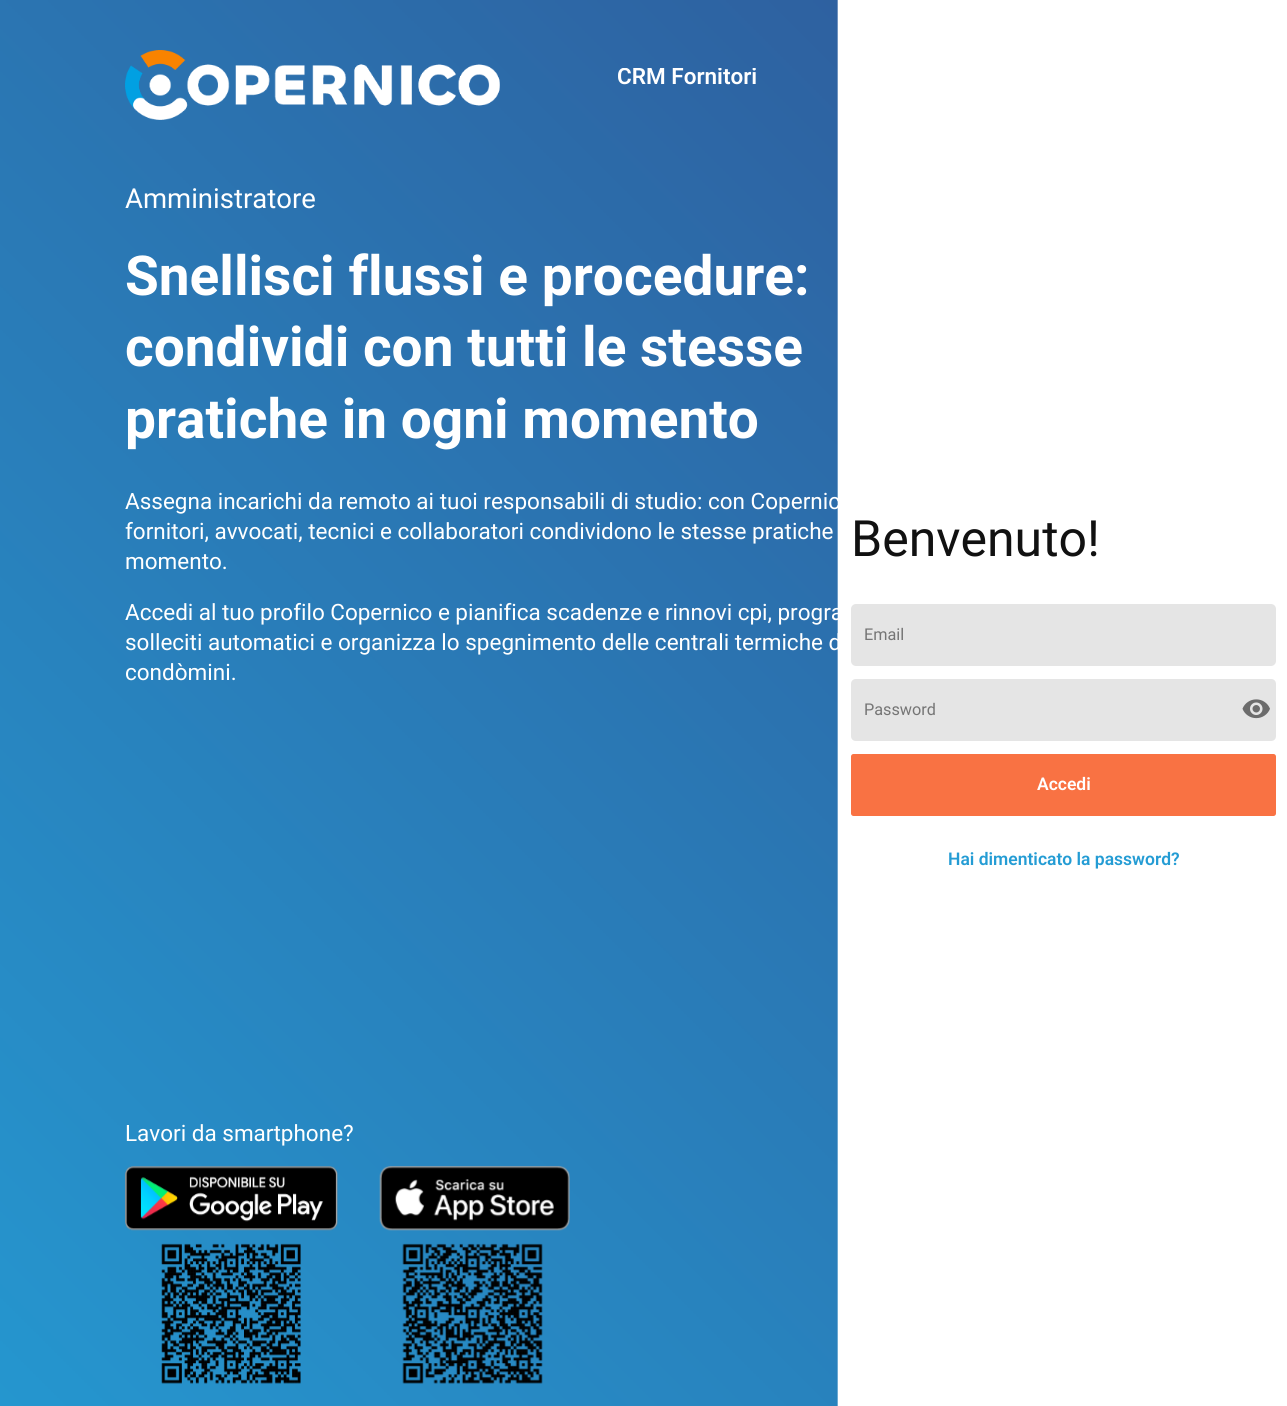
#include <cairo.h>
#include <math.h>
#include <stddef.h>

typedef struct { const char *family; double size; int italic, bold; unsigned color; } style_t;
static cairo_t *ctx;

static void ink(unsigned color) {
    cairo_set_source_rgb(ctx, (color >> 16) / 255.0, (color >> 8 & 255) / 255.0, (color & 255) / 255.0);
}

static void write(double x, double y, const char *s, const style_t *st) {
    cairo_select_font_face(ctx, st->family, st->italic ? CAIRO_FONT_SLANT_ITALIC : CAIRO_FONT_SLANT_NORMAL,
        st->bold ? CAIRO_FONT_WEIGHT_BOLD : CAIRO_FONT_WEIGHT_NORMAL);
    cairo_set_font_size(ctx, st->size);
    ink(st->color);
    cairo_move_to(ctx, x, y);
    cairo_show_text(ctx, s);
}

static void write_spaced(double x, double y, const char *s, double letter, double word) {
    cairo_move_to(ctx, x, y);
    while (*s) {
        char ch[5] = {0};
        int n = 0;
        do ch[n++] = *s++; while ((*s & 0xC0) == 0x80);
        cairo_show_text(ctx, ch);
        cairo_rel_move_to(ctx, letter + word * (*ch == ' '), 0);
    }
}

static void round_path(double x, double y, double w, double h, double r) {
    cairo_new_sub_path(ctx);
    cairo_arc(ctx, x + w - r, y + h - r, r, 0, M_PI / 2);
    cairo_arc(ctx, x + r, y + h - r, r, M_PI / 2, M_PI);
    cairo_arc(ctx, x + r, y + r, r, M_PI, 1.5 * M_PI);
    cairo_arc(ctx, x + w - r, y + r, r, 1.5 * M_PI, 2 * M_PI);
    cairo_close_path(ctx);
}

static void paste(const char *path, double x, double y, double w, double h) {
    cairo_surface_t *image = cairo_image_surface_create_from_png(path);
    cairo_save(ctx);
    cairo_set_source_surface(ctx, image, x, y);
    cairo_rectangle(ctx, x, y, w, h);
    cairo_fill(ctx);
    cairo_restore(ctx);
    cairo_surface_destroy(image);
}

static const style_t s1 = {"Roboto SemiBold", 22.5, 0, 0, 0xffffff};
static const style_t s2 = {"Roboto", 27.5, 0, 0, 0xffffff};
static const style_t s3 = {"Roboto", 55, 0, 1, 0xffffff};
static const style_t s4 = {"Roboto", 22.5, 0, 0, 0xffffff};
static const style_t s5 = {"Roboto", 50, 0, 0, 0x111111};
static const style_t s6 = {"Roboto", 16.25, 0, 0, 0x757575};
static const style_t s7 = {"Roboto SemiBold", 17.5, 0, 0, 0xffffff};
static const style_t s8 = {"Roboto SemiBold", 17.5, 0, 0, 0x249cd4};

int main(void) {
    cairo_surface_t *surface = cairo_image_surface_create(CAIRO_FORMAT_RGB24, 1287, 1406);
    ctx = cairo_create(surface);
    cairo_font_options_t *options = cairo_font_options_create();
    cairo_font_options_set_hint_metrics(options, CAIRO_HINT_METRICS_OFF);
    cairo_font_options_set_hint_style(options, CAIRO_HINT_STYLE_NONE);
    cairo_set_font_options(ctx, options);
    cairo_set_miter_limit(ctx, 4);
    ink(0xffffff);
    cairo_paint(ctx);
    paste("pic1.png", 0, 0, 838, 1406);
    cairo_save(ctx);
    cairo_rectangle(ctx, 611, 68, 153, 18);
    cairo_clip(ctx);
    write(617, 84, "CRM Fornitori", &s1);
    cairo_restore(ctx);
    paste("pic2.png", 125, 50, 375, 70);
    write(125, 208, "Amministratore", &s2);
    write(125, 295, "Snellisci flussi e procedure:", &s3);
    write(125, 366, "condividi con tutti le stesse", &s3);
    write(125, 438, "pratiche in ogni momento", &s3);
    cairo_save(ctx);
    cairo_rectangle(ctx, 0, 0, 838, 1406);
    cairo_clip(ctx);
    write(125, 509, "Assegna incarichi da remoto ai tuoi responsabili di studio: con Copernic", &s4);
    cairo_restore(ctx);
    write(125, 539, "fornitori, avvocati, tecnici e collaboratori condividono le stesse pratiche", &s4);
    write(125, 569, "momento.", &s4);
    cairo_save(ctx);
    cairo_rectangle(ctx, 0, 0, 838, 1406);
    cairo_clip(ctx);
    write_spaced(125, 620, "Accedi al tuo profilo Copernico e pianifica scadenze e rinnovi cpi, progra", 0, -0.1);
    write(125, 650, "solleciti automatici e organizza lo spegnimento delle centrali termiche d", &s4);
    cairo_restore(ctx);
    write(125, 680, "condòmini.", &s4);
    write(125, 1141, "Lavori da smartphone?", &s4);
    paste("pic3.png", 125, 1166, 213, 65);
    paste("pic4.png", 379, 1166, 191, 65);
    paste("pic5.png", 161, 1243, 140, 141);
    paste("pic6.png", 402, 1243, 141, 141);
    write(851, 556, "Benvenuto!", &s5);
    ink(0xe5e5e5);
    round_path(851, 604, 425, 62, 5);
    cairo_fill(ctx);
    write(864, 640, "Email", &s6);
    ink(0xe5e5e5);
    cairo_new_path(ctx);
    cairo_move_to(ctx, 856, 679);
    cairo_line_to(ctx, 1236, 679);
    cairo_line_to(ctx, 1236, 741);
    cairo_line_to(ctx, 856, 741);
    cairo_curve_to(ctx, 853, 741, 851, 739, 851, 736);
    cairo_line_to(ctx, 851, 684);
    cairo_curve_to(ctx, 851, 681, 853, 679, 856, 679);
    cairo_close_path(ctx);
    cairo_fill(ctx);
    write(864, 715, "Password", &s6);
    ink(0xe5e5e5);
    cairo_new_path(ctx);
    cairo_move_to(ctx, 1236, 679);
    cairo_line_to(ctx, 1271, 679);
    cairo_curve_to(ctx, 1274, 679, 1276, 681, 1276, 684);
    cairo_line_to(ctx, 1276, 736);
    cairo_curve_to(ctx, 1276, 739, 1274, 741, 1271, 741);
    cairo_line_to(ctx, 1236, 741);
    cairo_close_path(ctx);
    cairo_fill(ctx);
    paste("pic7.png", 1242, 699, 28, 20);
    ink(0xf97243);
    round_path(851, 754, 425, 62, 2.5);
    cairo_fill(ctx);
    write(1037, 790, "Accedi", &s7);
    write(948, 865, "Hai dimenticato la password?", &s8);
    cairo_surface_write_to_png(surface, "screenshot.png");
    cairo_font_options_destroy(options);
    cairo_destroy(ctx);
    cairo_surface_destroy(surface);
    return 0;
}
